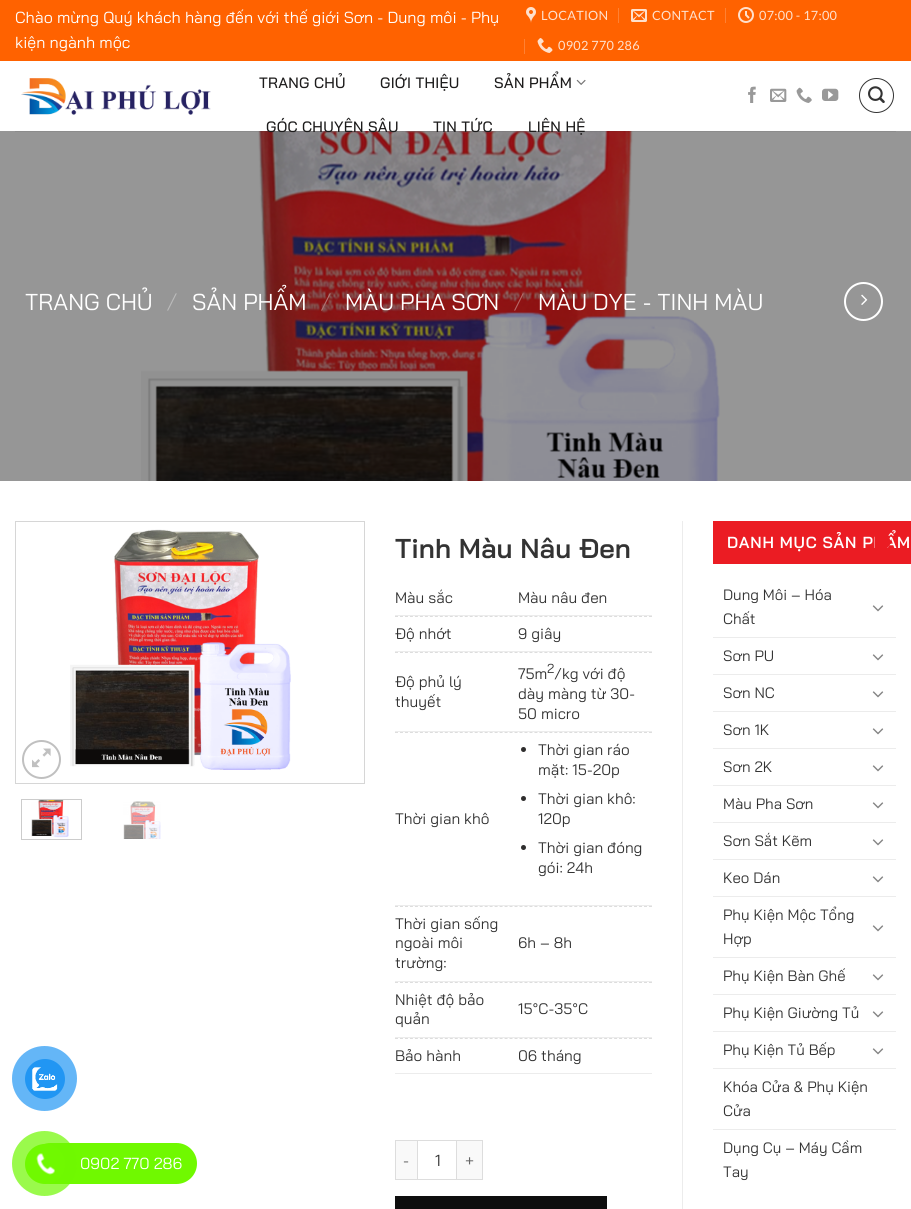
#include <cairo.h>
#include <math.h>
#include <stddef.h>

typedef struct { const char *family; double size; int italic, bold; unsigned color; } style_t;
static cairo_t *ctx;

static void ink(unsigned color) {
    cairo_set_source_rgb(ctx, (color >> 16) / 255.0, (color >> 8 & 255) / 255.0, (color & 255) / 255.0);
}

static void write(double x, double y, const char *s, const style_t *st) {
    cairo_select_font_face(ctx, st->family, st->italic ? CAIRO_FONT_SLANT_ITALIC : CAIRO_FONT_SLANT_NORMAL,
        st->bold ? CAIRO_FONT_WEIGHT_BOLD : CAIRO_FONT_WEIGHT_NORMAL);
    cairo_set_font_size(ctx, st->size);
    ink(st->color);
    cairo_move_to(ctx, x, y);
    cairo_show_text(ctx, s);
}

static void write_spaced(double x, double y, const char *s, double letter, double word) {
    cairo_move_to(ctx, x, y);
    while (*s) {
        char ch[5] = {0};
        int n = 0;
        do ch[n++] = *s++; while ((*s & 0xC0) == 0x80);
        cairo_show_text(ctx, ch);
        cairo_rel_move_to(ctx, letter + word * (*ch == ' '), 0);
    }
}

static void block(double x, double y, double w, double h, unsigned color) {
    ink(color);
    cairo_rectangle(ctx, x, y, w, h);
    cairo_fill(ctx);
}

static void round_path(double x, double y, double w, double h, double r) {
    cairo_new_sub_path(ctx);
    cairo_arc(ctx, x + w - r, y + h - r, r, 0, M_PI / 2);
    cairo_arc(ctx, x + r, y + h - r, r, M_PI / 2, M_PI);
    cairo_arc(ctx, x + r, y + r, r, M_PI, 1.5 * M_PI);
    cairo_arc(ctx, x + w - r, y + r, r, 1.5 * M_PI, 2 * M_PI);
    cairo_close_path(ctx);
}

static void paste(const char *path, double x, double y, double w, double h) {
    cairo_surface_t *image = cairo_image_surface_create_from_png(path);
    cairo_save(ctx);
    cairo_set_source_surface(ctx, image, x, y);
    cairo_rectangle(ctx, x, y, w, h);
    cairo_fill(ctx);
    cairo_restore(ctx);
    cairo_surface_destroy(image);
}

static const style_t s1 = {"Bai Jamjuree", 16, 0, 0, 0xffffff};
static const style_t s2 = {"Bai Jamjuree", 23, 0, 0, 0xffffff};
static const style_t s3 = {"Bai Jamjuree Light", 23, 0, 0, 0xbbbbbb};
static const style_t s4 = {"Bai Jamjuree Light", 23, 0, 0, 0xb07575};
static const style_t s5 = {"Bai Jamjuree Light", 23, 0, 0, 0xb56969};
static const style_t s6 = {"Bai Jamjuree SemiBold", 27.25, 0, 0, 0x333333};
static const style_t s7 = {"Bai Jamjuree", 15.25, 0, 0, 0x333333};
static const style_t s8 = {"Bai Jamjuree", 13, 0, 0, 0x333333};
static const style_t s9 = {"Bai Jamjuree", 16, 0, 0, 0x666666};
static const style_t s10 = {"Bai Jamjuree", 16, 0, 0, 0x333333};
static const style_t s11 = {"Bai Jamjuree", 15, 0, 0, 0x333333};

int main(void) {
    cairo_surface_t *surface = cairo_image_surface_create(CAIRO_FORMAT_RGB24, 911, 1209);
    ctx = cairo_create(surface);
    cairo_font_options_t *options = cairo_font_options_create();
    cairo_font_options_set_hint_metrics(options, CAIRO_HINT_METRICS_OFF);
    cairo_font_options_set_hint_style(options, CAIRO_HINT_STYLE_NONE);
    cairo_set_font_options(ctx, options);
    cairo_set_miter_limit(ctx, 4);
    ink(0xffffff);
    cairo_paint(ctx);
    block(0, 0, 911, 61, 0xff6200);
    write(15, 23, "Chào mừng Quý khách hàng đến với thế giới Sơn - Dung môi - Phụ", &s1);
    write(15, 48, "kiện ngành mộc", &s1);
    paste("pic1.png", 526, 7, 10, 16);
    cairo_select_font_face(ctx, "Lato", CAIRO_FONT_SLANT_NORMAL, CAIRO_FONT_WEIGHT_NORMAL);
    cairo_set_font_size(ctx, 12.75);
    ink(0xffe0cc);
    write_spaced(541, 20, "LOCATION", 0.25, 0);
    block(618, 8, 1, 15, 0xff8133);
    paste("pic2.png", 631, 9, 16, 13);
    ink(0xffe0cc);
    write_spaced(652, 20, "CONTACT", 0.25, 0);
    block(725, 8, 1, 15, 0xff8133);
    paste("pic3.png", 738, 7, 16, 16);
    ink(0xffe0cc);
    write_spaced(759, 20, "07:00 - 17:00", 0.25, 0);
    block(524, 39, 1, 15, 0xff8133);
    paste("pic4.png", 537, 38, 16, 15);
    ink(0xffe0cc);
    write_spaced(558, 50, "0902 770 286", 0.25, 0);
    paste("pic5.png", 21, 78, 190, 37);
    cairo_select_font_face(ctx, "Bai Jamjuree Medium", CAIRO_FONT_SLANT_NORMAL, CAIRO_FONT_WEIGHT_NORMAL);
    cairo_set_font_size(ctx, 15);
    ink(0x1c1b1b);
    write_spaced(259, 88, "TRANG CHỦ", 0.25, 0);
    write_spaced(380, 88, "GIỚI THIỆU", 0.25, 0);
    write_spaced(494, 88, "SẢN PHẨM", 0.25, 0);
    paste("pic6.png", 576, 79, 10, 6);
    paste("pic12.png", 0, 131, 911, 350);
    write_spaced(266, 132, "GÓC CHUYÊN SÂU", 0.25, 0);
    write_spaced(433, 132, "TIN TỨC", 0.25, 0);
    write_spaced(528, 132, "LIÊN HỆ", 0.25, 0);
    paste("pic7.png", 748, 86, 8, 17);
    paste("pic8.png", 770, 88, 17, 14);
    paste("pic9.png", 796, 87, 16, 16);
    paste("pic10.png", 822, 88, 17, 13);
    cairo_arc(ctx, 876.5, 95.5, 17, 0, 2 * M_PI);
    ink(0x333333);
    cairo_set_line_width(ctx, 1);
    cairo_stroke(ctx);
    paste("pic11.png", 868, 86, 17, 17);
    cairo_set_source_rgba(ctx, 0.2, 0.2, 0.2, 0.1);
    cairo_rectangle(ctx, 15, 131, 881, 1);
    cairo_fill(ctx);
    write(25, 310, "TRANG CHỦ", &s2);
    write(166, 310, "/", &s3);
    write(192, 310, "SẢN PHẨM", &s2);
    write(320, 310, "/", &s4);
    write(345, 310, "MÀU PHA SƠN", &s2);
    write(513, 310, "/", &s5);
    write(538, 310, "MÀU DYE - TINH MÀU", &s2);
    cairo_new_path(ctx);
    cairo_arc(ctx, 863.5, 301.5, 18.5, 0, 2 * M_PI);
    cairo_set_line_width(ctx, 2);
    cairo_stroke(ctx);
    paste("pic13.png", 861, 294, 7, 11);
    cairo_rectangle(ctx, 15.5, 521.5, 349, 262);
    ink(0xd6d6d6);
    cairo_set_line_width(ctx, 1);
    cairo_stroke(ctx);
    paste("pic14.png", 70, 529, 221, 241);
    cairo_arc(ctx, 41.5, 759.5, 18.5, 0, 2 * M_PI);
    ink(0xc0c0c0);
    cairo_set_line_width(ctx, 2);
    cairo_stroke(ctx);
    paste("pic15.png", 32, 748, 19, 20);
    cairo_rectangle(ctx, 21.5, 799.5, 60, 40);
    ink(0xcccccc);
    cairo_set_line_width(ctx, 1);
    cairo_stroke(ctx);
    paste("pic16.png", 31, 800, 38, 38);
    paste("pic17.png", 123, 801, 38, 38);
    block(682, 521, 1, 688, 0xececec);
    write(395, 558, "Tinh Màu Nâu Đen", &s6);
    block(395, 615, 257, 1, 0xececec);
    write(395, 603, "Màu sắc", &s7);
    write(518, 603, "Màu nâu đen", &s7);
    cairo_new_path(ctx);
    cairo_move_to(ctx, 395, 616.5);
    cairo_line_to(ctx, 652, 616.5);
    ink(0xdddddd);
    cairo_set_dash(ctx, (double[]){3, 1.98}, 2, 0);
    cairo_stroke(ctx);
    block(395, 651, 257, 1, 0xececec);
    write(395, 639, "Độ nhớt", &s7);
    write(518, 639, "9 giây", &s7);
    cairo_new_path(ctx);
    cairo_move_to(ctx, 395, 652.5);
    cairo_line_to(ctx, 652, 652.5);
    ink(0xdddddd);
    cairo_stroke(ctx);
    block(395, 731, 257, 1, 0xececec);
    write(395, 687, "Độ phủ lý", &s7);
    write(395, 707, "thuyết", &s7);
    write(518, 679, "75m", &s7);
    write(547, 673, "2", &s8);
    write(554, 679, "/kg với độ", &s7);
    write(518, 699, "dày màng từ 30-", &s7);
    write(518, 719, "50 micro", &s7);
    cairo_new_path(ctx);
    cairo_move_to(ctx, 395, 732.5);
    cairo_line_to(ctx, 652, 732.5);
    ink(0xdddddd);
    cairo_stroke(ctx);
    block(395, 905, 257, 1, 0xececec);
    write(395, 824, "Thời gian khô", &s7);
    ink(0x2f2e2e);
    cairo_new_path(ctx);
    cairo_arc(ctx, 523.5, 749.5, 2.5, 0, 2 * M_PI);
    cairo_fill(ctx);
    write(538, 755, "Thời gian ráo", &s7);
    write(538, 775, "mặt: 15-20p", &s7);
    ink(0x2f2e2e);
    cairo_new_path(ctx);
    cairo_arc(ctx, 523.5, 798.5, 2.5, 0, 2 * M_PI);
    cairo_fill(ctx);
    write(538, 804, "Thời gian khô:", &s7);
    write(538, 824, "120p", &s7);
    ink(0x2f2e2e);
    cairo_new_path(ctx);
    cairo_arc(ctx, 523.5, 847.5, 2.5, 0, 2 * M_PI);
    cairo_fill(ctx);
    write(538, 853, "Thời gian đóng", &s7);
    write(538, 873, "gói: 24h", &s7);
    cairo_new_path(ctx);
    cairo_move_to(ctx, 395, 906.5);
    cairo_line_to(ctx, 652, 906.5);
    ink(0xdddddd);
    cairo_stroke(ctx);
    block(395, 981, 257, 1, 0xececec);
    write(395, 929, "Thời gian sống", &s7);
    write(395, 948, "ngoài môi", &s7);
    write(395, 968, "trường:", &s7);
    write(518, 948, "6h – 8h", &s7);
    cairo_new_path(ctx);
    cairo_move_to(ctx, 395, 982.5);
    cairo_line_to(ctx, 652, 982.5);
    ink(0xdddddd);
    cairo_stroke(ctx);
    block(395, 1037, 257, 1, 0xececec);
    write(395, 1005, "Nhiệt độ bảo", &s7);
    write(395, 1024, "quản", &s7);
    write(518, 1014, "15°C-35°C", &s7);
    cairo_new_path(ctx);
    cairo_move_to(ctx, 395, 1038.5);
    cairo_line_to(ctx, 652, 1038.5);
    ink(0xdddddd);
    cairo_stroke(ctx);
    block(395, 1073, 257, 1, 0xececec);
    write(395, 1061, "Bảo hành", &s7);
    write(518, 1061, "06 tháng", &s7);
    block(396, 1141, 21, 38, 0xf9f9f9);
    block(395, 1140, 22, 1, 0xdddddd);
    block(395, 1179, 22, 1, 0xdddddd);
    block(395, 1140, 1, 40, 0xdddddd);
    write(403, 1166, "-", &s9);
    cairo_rectangle(ctx, 417.5, 1140.5, 39, 39);
    ink(0xdddddd);
    cairo_set_dash(ctx, NULL, 0, 0);
    cairo_stroke(ctx);
    write(435, 1166, "1", &s10);
    block(457, 1141, 25, 38, 0xf9f9f9);
    block(457, 1140, 26, 1, 0xdddddd);
    block(482, 1140, 1, 40, 0xdddddd);
    block(457, 1179, 26, 1, 0xdddddd);
    write(465, 1166, "+", &s9);
    block(395, 1196, 212, 13, 0x0e0e0e);
    block(713, 521, 198, 43, 0xeb1c23);
    cairo_select_font_face(ctx, "Bai Jamjuree SemiBold", CAIRO_FONT_SLANT_NORMAL, CAIRO_FONT_WEIGHT_NORMAL);
    ink(0xffffff);
    write_spaced(727, 548, "DANH MỤC SẢN PHẨM", 0.75, 0);
    ink(0xeb1c23);
    cairo_new_path(ctx);
    cairo_move_to(ctx, 875, 564);
    cairo_line_to(ctx, 875, 521);
    cairo_line_to(ctx, 892, 542);
    cairo_close_path(ctx);
    cairo_fill(ctx);
    write(723, 600, "Dung Môi – Hóa", &s11);
    write(723, 624, "Chất", &s11);
    paste("pic18.png", 872, 605, 12, 7);
    block(713, 637, 183, 1, 0xececec);
    write(723, 661, "Sơn PU", &s11);
    paste("pic18.png", 872, 654, 12, 7);
    block(713, 674, 183, 1, 0xececec);
    write(723, 698, "Sơn NC", &s11);
    paste("pic18.png", 872, 691, 12, 7);
    block(713, 711, 183, 1, 0xececec);
    write(723, 735, "Sơn 1K", &s11);
    paste("pic18.png", 872, 728, 12, 7);
    block(713, 748, 183, 1, 0xececec);
    write(723, 772, "Sơn 2K", &s11);
    paste("pic18.png", 872, 765, 12, 7);
    block(713, 785, 183, 1, 0xececec);
    write(723, 809, "Màu Pha Sơn", &s11);
    paste("pic18.png", 872, 802, 12, 7);
    block(713, 822, 183, 1, 0xececec);
    write(723, 846, "Sơn Sắt Kẽm", &s11);
    paste("pic18.png", 872, 839, 12, 7);
    block(713, 859, 183, 1, 0xececec);
    write(723, 883, "Keo Dán", &s11);
    paste("pic18.png", 872, 876, 12, 7);
    block(713, 896, 183, 1, 0xececec);
    write(723, 920, "Phụ Kiện Mộc Tổng", &s11);
    write(723, 944, "Hợp", &s11);
    paste("pic18.png", 872, 925, 12, 7);
    block(713, 957, 183, 1, 0xececec);
    write(723, 981, "Phụ Kiện Bàn Ghế", &s11);
    paste("pic18.png", 872, 974, 12, 7);
    block(713, 994, 183, 1, 0xececec);
    write(723, 1018, "Phụ Kiện Giường Tủ", &s11);
    paste("pic18.png", 872, 1011, 12, 7);
    block(713, 1031, 183, 1, 0xececec);
    write(723, 1055, "Phụ Kiện Tủ Bếp", &s11);
    paste("pic18.png", 872, 1048, 12, 7);
    block(713, 1068, 183, 1, 0xececec);
    write(723, 1092, "Khóa Cửa & Phụ Kiện", &s11);
    write(723, 1116, "Cửa", &s11);
    block(713, 1129, 183, 1, 0xececec);
    write(723, 1153, "Dụng Cụ – Máy Cầm", &s11);
    write(723, 1177, "Tay", &s11);
    ink(0x64b6f7);
    cairo_new_path(ctx);
    cairo_arc(ctx, 44.5, 1078.5, 32.5, 0, 2 * M_PI);
    cairo_fill(ctx);
    ink(0x2196f3);
    cairo_arc(ctx, 45, 1079, 20, 0, 2 * M_PI);
    cairo_fill(ctx);
    paste("pic19.png", 32, 1067, 26, 24);
    ink(0x70f900);
    round_path(30, 1143, 167, 41, 20.5);
    cairo_fill(ctx);
    cairo_set_source_rgba(ctx, 0.439, 0.976, 0, 0.7);
    cairo_arc(ctx, 44.5, 1163.5, 32.5, 0, 2 * M_PI);
    cairo_fill(ctx);
    ink(0x70f900);
    cairo_arc(ctx, 45, 1164, 20, 0, 2 * M_PI);
    cairo_fill(ctx);
    paste("pic20.png", 36, 1153, 19, 22);
    write(80, 1169, "0902 770 286", &s1);
    cairo_surface_write_to_png(surface, "screenshot.png");
    cairo_font_options_destroy(options);
    cairo_destroy(ctx);
    cairo_surface_destroy(surface);
    return 0;
}
